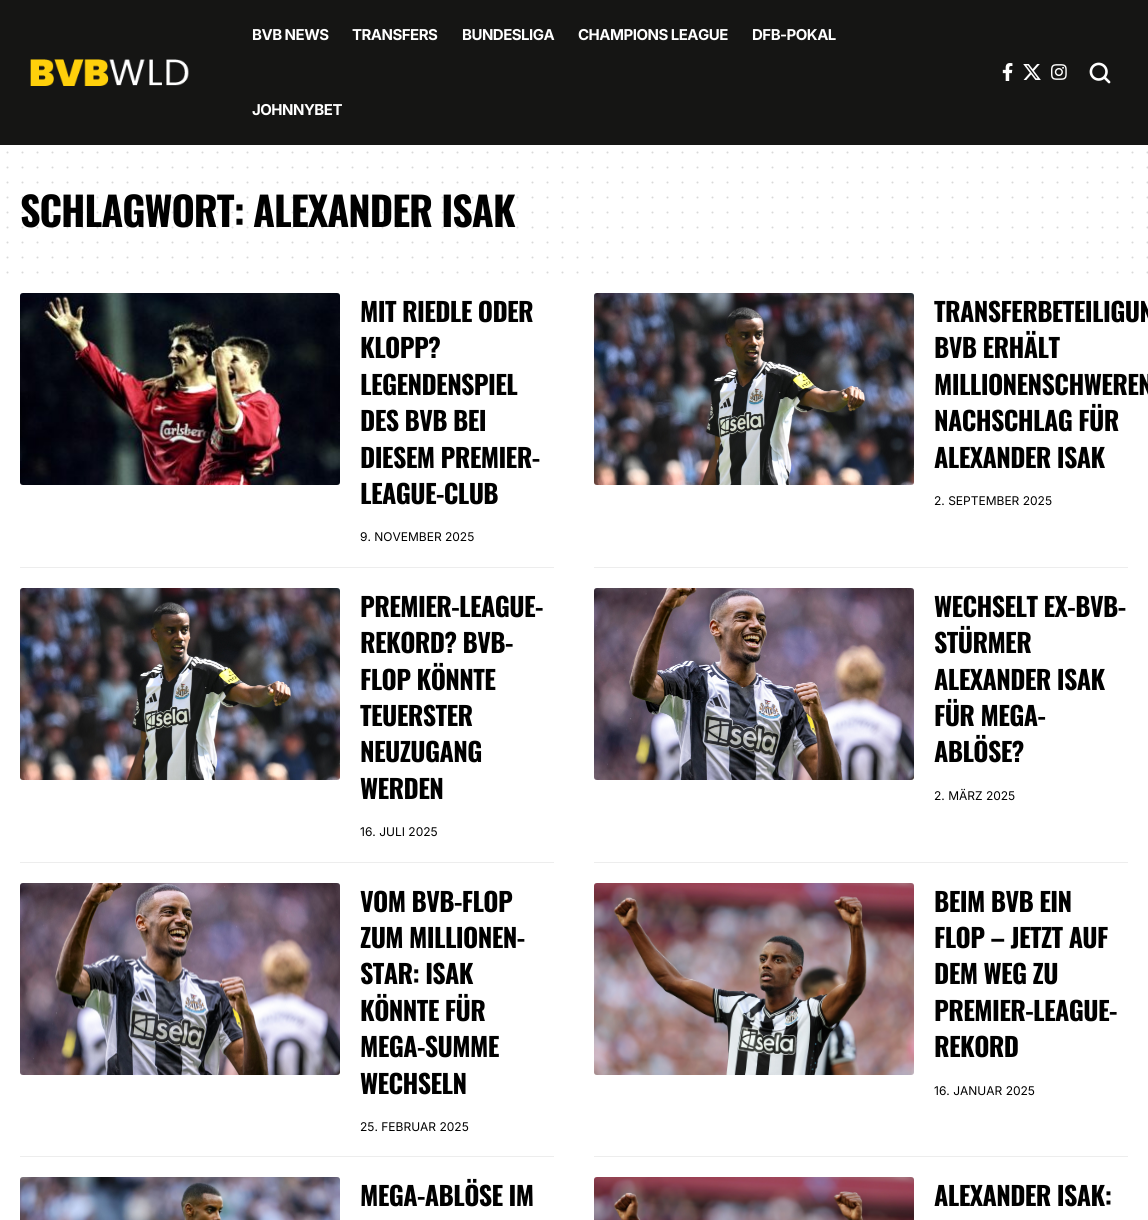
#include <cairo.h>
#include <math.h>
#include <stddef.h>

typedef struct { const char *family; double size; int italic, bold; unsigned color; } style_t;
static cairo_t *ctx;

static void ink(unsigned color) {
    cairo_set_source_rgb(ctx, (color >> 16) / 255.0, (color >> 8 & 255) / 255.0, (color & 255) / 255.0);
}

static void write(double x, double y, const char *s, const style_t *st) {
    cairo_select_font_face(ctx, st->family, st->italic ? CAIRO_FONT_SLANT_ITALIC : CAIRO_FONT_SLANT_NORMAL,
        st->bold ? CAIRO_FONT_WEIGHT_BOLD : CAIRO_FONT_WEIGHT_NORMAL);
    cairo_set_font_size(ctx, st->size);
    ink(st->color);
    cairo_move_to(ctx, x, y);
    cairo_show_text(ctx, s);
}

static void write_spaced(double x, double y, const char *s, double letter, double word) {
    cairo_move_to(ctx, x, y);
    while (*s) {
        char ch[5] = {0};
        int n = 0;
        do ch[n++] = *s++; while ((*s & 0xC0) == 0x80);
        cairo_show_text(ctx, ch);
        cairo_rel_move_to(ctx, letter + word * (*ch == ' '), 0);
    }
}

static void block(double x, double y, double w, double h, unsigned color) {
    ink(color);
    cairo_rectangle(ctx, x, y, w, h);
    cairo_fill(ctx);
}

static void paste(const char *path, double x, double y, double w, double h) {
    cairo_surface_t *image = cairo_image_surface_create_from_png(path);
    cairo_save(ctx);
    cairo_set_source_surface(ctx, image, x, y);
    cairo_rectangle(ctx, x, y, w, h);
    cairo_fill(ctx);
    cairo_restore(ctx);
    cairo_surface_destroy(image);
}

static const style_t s1 = {"Inter", 12, 0, 0, 0x000000};

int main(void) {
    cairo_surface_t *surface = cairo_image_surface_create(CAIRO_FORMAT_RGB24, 1148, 1220);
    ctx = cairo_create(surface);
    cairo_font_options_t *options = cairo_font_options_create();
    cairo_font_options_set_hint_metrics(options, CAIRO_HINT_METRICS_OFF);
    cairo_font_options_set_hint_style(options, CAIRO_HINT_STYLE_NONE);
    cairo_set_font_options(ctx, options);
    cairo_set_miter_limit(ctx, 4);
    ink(0xffffff);
    cairo_paint(ctx);
    block(0, 0, 1148, 145, 0x151514);
    paste("pic1.png", 30, 59, 159, 27);
    cairo_select_font_face(ctx, "Inter", CAIRO_FONT_SLANT_NORMAL, CAIRO_FONT_WEIGHT_BOLD);
    cairo_set_font_size(ctx, 15);
    ink(0xffffff);
    write_spaced(252, 40, "BVB NEWS", -0.5, 0);
    write_spaced(352, 40, "TRANSFERS", -0.5, 0);
    write_spaced(462, 40, "BUNDESLIGA", -0.5, 0);
    write_spaced(578, 40, "CHAMPIONS LEAGUE", -0.5, 0);
    write_spaced(752, 40, "DFB-POKAL", -0.5, 0);
    write_spaced(252, 115, "JOHNNYBET", -0.5, 0);
    paste("pic2.png", 1002, 63, 11, 18);
    paste("pic3.png", 1023, 64, 18, 16);
    paste("pic4.png", 1051, 64, 16, 16);
    paste("pic5.png", 1089, 62, 22, 22);
    cairo_new_path(ctx);
    cairo_move_to(ctx, 7.5, 152.5);
    cairo_line_to(ctx, 1147.7, 152.5);
    ink(0xd9d9d9);
    cairo_set_line_cap(ctx, CAIRO_LINE_CAP_ROUND);
    cairo_set_dash(ctx, (double[]){0, 15}, 2, 0);
    cairo_stroke(ctx);
    cairo_new_path(ctx);
    cairo_move_to(ctx, 7.5, 167.5);
    cairo_line_to(ctx, 1147.7, 167.5);
    cairo_stroke(ctx);
    cairo_new_path(ctx);
    cairo_move_to(ctx, 7.5, 182.5);
    cairo_line_to(ctx, 1147.7, 182.5);
    cairo_stroke(ctx);
    cairo_select_font_face(ctx, "Oswald", CAIRO_FONT_SLANT_NORMAL, CAIRO_FONT_WEIGHT_BOLD);
    cairo_set_font_size(ctx, 40);
    ink(0x000000);
    write_spaced(20, 227, "SCHLAGWORT: ALEXANDER ISAK", -1, 0);
    cairo_new_path(ctx);
    cairo_move_to(ctx, 7.5, 197.5);
    cairo_line_to(ctx, 1147.7, 197.5);
    cairo_set_source_rgba(ctx, 0, 0, 0, 0.15);
    cairo_stroke(ctx);
    cairo_new_path(ctx);
    cairo_move_to(ctx, 7.5, 212.5);
    cairo_line_to(ctx, 1147.7, 212.5);
    cairo_stroke(ctx);
    cairo_new_path(ctx);
    cairo_move_to(ctx, 7.5, 227.5);
    cairo_line_to(ctx, 1147.7, 227.5);
    cairo_stroke(ctx);
    cairo_new_path(ctx);
    cairo_move_to(ctx, 7.5, 242.5);
    cairo_line_to(ctx, 1147.7, 242.5);
    ink(0xd9d9d9);
    cairo_stroke(ctx);
    cairo_new_path(ctx);
    cairo_move_to(ctx, 7.5, 257.5);
    cairo_line_to(ctx, 1147.7, 257.5);
    cairo_stroke(ctx);
    cairo_new_path(ctx);
    cairo_move_to(ctx, 7.5, 272.5);
    cairo_line_to(ctx, 1147.7, 272.5);
    cairo_stroke(ctx);
    paste("pic6.png", 20, 293, 320, 192);
    cairo_set_font_size(ctx, 26);
    ink(0x000000);
    write_spaced(360, 322, "MIT RIEDLE ODER", -0.6, 0);
    write_spaced(360, 358, "KLOPP?", -0.6, 0);
    write_spaced(360, 395, "LEGENDENSPIEL", -0.6, 0);
    write_spaced(360, 431, "DES BVB BEI", -0.6, 0);
    write_spaced(360, 468, "DIESEM PREMIER-", -0.6, 0);
    write_spaced(360, 504, "LEAGUE-CLUB", -0.6, 0);
    write(360, 541, "9. NOVEMBER 2025", &s1);
    block(20, 567, 534, 1, 0xededed);
    paste("pic7.png", 594, 293, 320, 192);
    cairo_select_font_face(ctx, "Oswald", CAIRO_FONT_SLANT_NORMAL, CAIRO_FONT_WEIGHT_BOLD);
    cairo_set_font_size(ctx, 26);
    ink(0x000000);
    write_spaced(934, 322, "TRANSFERBETEILIGUN", -0.6, 0);
    write_spaced(934, 358, "BVB ERHÄLT", -0.6, 0);
    write_spaced(934, 395, "MILLIONENSCHWEREN", -0.6, 0);
    write_spaced(934, 431, "NACHSCHLAG FÜR", -0.6, 0);
    write_spaced(934, 468, "ALEXANDER ISAK", -0.6, 0);
    write(934, 505, "2. SEPTEMBER 2025", &s1);
    block(594, 567, 534, 1, 0xededed);
    paste("pic7.png", 20, 588, 320, 192);
    cairo_select_font_face(ctx, "Oswald", CAIRO_FONT_SLANT_NORMAL, CAIRO_FONT_WEIGHT_BOLD);
    cairo_set_font_size(ctx, 26);
    ink(0x000000);
    write_spaced(360, 617, "PREMIER-LEAGUE-", -0.6, 0);
    write_spaced(360, 653, "REKORD? BVB-", -0.6, 0);
    write_spaced(360, 690, "FLOP KÖNNTE", -0.6, 0);
    write_spaced(360, 726, "TEUERSTER", -0.6, 0);
    write_spaced(360, 762, "NEUZUGANG", -0.6, 0);
    write_spaced(360, 799, "WERDEN", -0.6, 0);
    write(360, 836, "16. JULI 2025", &s1);
    block(20, 862, 534, 1, 0xededed);
    paste("pic8.png", 594, 588, 320, 192);
    cairo_select_font_face(ctx, "Oswald", CAIRO_FONT_SLANT_NORMAL, CAIRO_FONT_WEIGHT_BOLD);
    cairo_set_font_size(ctx, 26);
    ink(0x000000);
    write_spaced(934, 617, "WECHSELT EX-BVB-", -0.6, 0);
    write_spaced(934, 653, "STÜRMER", -0.6, 0);
    write_spaced(934, 690, "ALEXANDER ISAK", -0.6, 0);
    write_spaced(934, 726, "FÜR MEGA-", -0.6, 0);
    write_spaced(934, 762, "ABLÖSE?", -0.6, 0);
    write(934, 800, "2. MÄRZ 2025", &s1);
    block(594, 862, 534, 1, 0xededed);
    paste("pic9.png", 20, 883, 320, 192);
    cairo_select_font_face(ctx, "Oswald", CAIRO_FONT_SLANT_NORMAL, CAIRO_FONT_WEIGHT_BOLD);
    cairo_set_font_size(ctx, 26);
    ink(0x000000);
    write_spaced(360, 912, "VOM BVB-FLOP", -0.6, 0);
    write_spaced(360, 948, "ZUM MILLIONEN-", -0.6, 0);
    write_spaced(360, 984, "STAR: ISAK", -0.6, 0);
    write_spaced(360, 1021, "KÖNNTE FÜR", -0.6, 0);
    write_spaced(360, 1057, "MEGA-SUMME", -0.6, 0);
    write_spaced(360, 1094, "WECHSELN", -0.6, 0);
    write(360, 1131, "25. FEBRUAR 2025", &s1);
    block(20, 1156, 534, 1, 0xededed);
    paste("pic10.png", 594, 883, 320, 192);
    cairo_select_font_face(ctx, "Oswald", CAIRO_FONT_SLANT_NORMAL, CAIRO_FONT_WEIGHT_BOLD);
    cairo_set_font_size(ctx, 26);
    ink(0x000000);
    write_spaced(934, 912, "BEIM BVB EIN", -0.6, 0);
    write_spaced(934, 948, "FLOP – JETZT AUF", -0.6, 0);
    write_spaced(934, 984, "DEM WEG ZU", -0.6, 0);
    write_spaced(934, 1021, "PREMIER-LEAGUE-", -0.6, 0);
    write_spaced(934, 1057, "REKORD", -0.6, 0);
    write(934, 1095, "16. JANUAR 2025", &s1);
    block(594, 1156, 534, 1, 0xededed);
    paste("pic11.png", 20, 1177, 320, 43);
    cairo_select_font_face(ctx, "Oswald", CAIRO_FONT_SLANT_NORMAL, CAIRO_FONT_WEIGHT_BOLD);
    cairo_set_font_size(ctx, 26);
    ink(0x000000);
    write_spaced(360, 1206, "MEGA-ABLÖSE IM", -0.6, 0);
    paste("pic12.png", 594, 1177, 320, 43);
    write_spaced(934, 1206, "ALEXANDER ISAK:", -0.6, 0);
    cairo_surface_write_to_png(surface, "screenshot.png");
    cairo_font_options_destroy(options);
    cairo_destroy(ctx);
    cairo_surface_destroy(surface);
    return 0;
}
